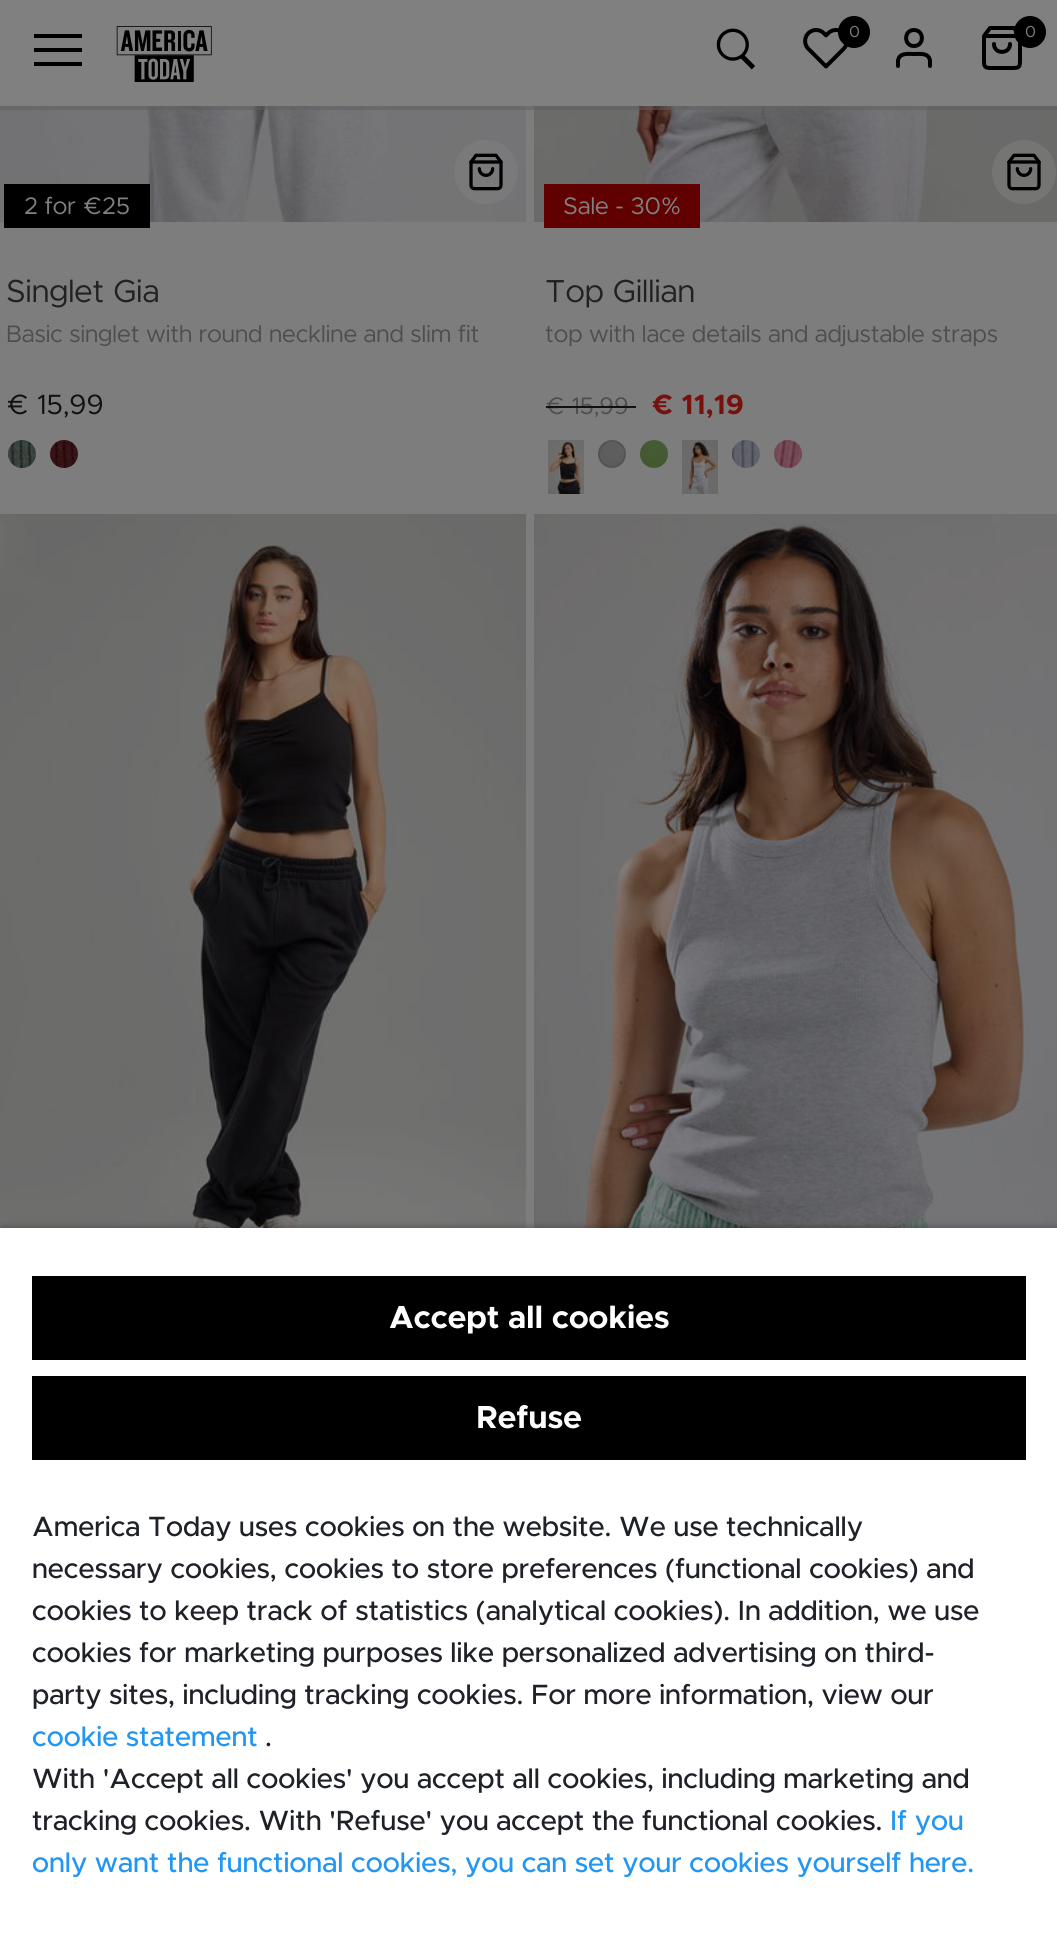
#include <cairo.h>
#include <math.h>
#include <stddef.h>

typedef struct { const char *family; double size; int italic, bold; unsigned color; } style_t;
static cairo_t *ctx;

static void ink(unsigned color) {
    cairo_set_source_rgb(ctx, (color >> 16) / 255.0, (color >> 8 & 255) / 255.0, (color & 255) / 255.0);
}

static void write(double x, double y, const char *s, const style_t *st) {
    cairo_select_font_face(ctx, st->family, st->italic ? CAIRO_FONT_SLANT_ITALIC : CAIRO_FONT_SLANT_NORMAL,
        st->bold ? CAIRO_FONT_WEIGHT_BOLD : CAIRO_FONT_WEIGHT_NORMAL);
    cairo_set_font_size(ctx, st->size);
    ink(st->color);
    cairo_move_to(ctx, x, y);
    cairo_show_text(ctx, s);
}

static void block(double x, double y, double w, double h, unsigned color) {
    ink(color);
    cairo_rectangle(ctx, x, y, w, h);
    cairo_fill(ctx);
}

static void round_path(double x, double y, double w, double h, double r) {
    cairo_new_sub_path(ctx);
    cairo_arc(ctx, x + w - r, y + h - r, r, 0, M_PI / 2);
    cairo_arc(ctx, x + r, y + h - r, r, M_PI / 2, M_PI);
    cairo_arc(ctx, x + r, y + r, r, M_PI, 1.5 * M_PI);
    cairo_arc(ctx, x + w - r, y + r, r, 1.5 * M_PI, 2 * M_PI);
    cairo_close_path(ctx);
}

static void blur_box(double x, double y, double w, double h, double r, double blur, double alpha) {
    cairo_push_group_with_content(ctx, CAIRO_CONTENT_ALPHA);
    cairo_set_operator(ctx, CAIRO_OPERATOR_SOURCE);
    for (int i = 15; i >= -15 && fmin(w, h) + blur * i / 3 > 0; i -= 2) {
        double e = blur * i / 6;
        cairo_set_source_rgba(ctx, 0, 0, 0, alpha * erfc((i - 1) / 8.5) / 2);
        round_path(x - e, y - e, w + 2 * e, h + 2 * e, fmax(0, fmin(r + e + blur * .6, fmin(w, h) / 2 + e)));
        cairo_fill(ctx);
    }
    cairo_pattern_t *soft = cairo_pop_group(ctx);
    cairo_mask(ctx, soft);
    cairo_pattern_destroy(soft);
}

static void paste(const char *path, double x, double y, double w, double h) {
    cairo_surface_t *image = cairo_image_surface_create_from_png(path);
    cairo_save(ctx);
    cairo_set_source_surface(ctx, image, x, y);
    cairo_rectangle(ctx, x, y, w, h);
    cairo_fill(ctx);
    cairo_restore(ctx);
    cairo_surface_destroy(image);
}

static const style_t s1 = {"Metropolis", 16, 0, 0, 0x808080};
static const style_t s2 = {"Metropolis", 24, 0, 0, 0x808080};
static const style_t s3 = {"Metropolis", 32, 0, 0, 0x222222};
static const style_t s4 = {"Metropolis", 24, 0, 0, 0x4e4e4e};
static const style_t s5 = {"Metropolis", 28, 0, 0, 0x111111};
static const style_t s6 = {"Metropolis", 28, 0, 1, 0x76110e};
static const style_t s7 = {"Metropolis", 32, 0, 1, 0xffffff};
static const style_t s8 = {"Metropolis Medium", 28, 0, 0, 0x1f2128};
static const style_t s9 = {"Metropolis Medium", 28, 0, 0, 0x2196f3};

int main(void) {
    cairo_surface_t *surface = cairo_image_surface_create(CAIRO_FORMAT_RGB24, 1057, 1934);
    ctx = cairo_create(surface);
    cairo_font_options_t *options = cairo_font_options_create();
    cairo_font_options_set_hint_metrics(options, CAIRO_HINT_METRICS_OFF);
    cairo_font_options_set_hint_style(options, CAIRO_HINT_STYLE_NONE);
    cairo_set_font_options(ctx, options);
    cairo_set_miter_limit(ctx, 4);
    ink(0x7d7d7d);
    cairo_paint(ctx);
    block(0, 0, 1057, 106, 0x808080);
    paste("pic4.png", 0, 106, 526, 116);
    paste("pic8.png", 534, 106, 523, 116);
    cairo_set_source_rgba(ctx, 0.373, 0.373, 0.373, 0.5);
    cairo_rectangle(ctx, 0, 106, 1057, 4);
    cairo_fill(ctx);
    block(34, 48, 48, 4, 0x000000);
    block(34, 34, 48, 4, 0x000000);
    block(34, 62, 48, 4, 0x000000);
    paste("pic1.png", 116, 26, 96, 56);
    paste("pic2.png", 716, 28, 39, 42);
    paste("pic3.png", 803, 28, 45, 41);
    cairo_arc(ctx, 854, 32, 16, 0, 2 * M_PI);
    cairo_fill(ctx);
    write(849, 37, "0", &s1);
    cairo_new_path(ctx);
    cairo_move_to(ctx, 930, 66);
    cairo_line_to(ctx, 930, 60.5);
    cairo_curve_to(ctx, 928.5, 52.5, 920, 54, 914, 54);
    cairo_curve_to(ctx, 908, 54, 899.5, 52.5, 898, 60.5);
    cairo_line_to(ctx, 898, 66);
    cairo_move_to(ctx, 914, 46);
    cairo_curve_to(ctx, 924.5, 46, 924.5, 30, 914, 30);
    cairo_curve_to(ctx, 903.5, 30, 903.5, 46, 914, 46);
    cairo_close_path(ctx);
    ink(0x000000);
    cairo_set_line_width(ctx, 4);
    cairo_set_line_cap(ctx, CAIRO_LINE_CAP_ROUND);
    cairo_set_line_join(ctx, CAIRO_LINE_JOIN_ROUND);
    cairo_stroke(ctx);
    cairo_new_path(ctx);
    cairo_move_to(ctx, 990, 28);
    cairo_line_to(ctx, 984, 36);
    cairo_line_to(ctx, 984, 59.5);
    cairo_curve_to(ctx, 984, 67.5, 984.5, 68, 992.5, 68);
    cairo_line_to(ctx, 1011.5, 68);
    cairo_curve_to(ctx, 1019.5, 68, 1020, 67.5, 1020, 59.5);
    cairo_line_to(ctx, 1020, 36);
    cairo_line_to(ctx, 1014, 28);
    cairo_close_path(ctx);
    cairo_move_to(ctx, 984, 36);
    cairo_line_to(ctx, 1020, 36);
    cairo_move_to(ctx, 1010, 44);
    cairo_curve_to(ctx, 1010, 54.5, 994, 54.5, 994, 44);
    cairo_stroke(ctx);
    cairo_arc(ctx, 1030, 32, 16, 0, 2 * M_PI);
    cairo_fill(ctx);
    write(1025, 37, "0", &s1);
    block(4, 184, 146, 44, 0x000000);
    write(24, 214, "2 for €25", &s2);
    cairo_set_source_rgba(ctx, 0.502, 0.502, 0.502, 0.5);
    cairo_new_path(ctx);
    cairo_arc(ctx, 486, 172, 32, 0, 2 * M_PI);
    cairo_fill(ctx);
    paste("pic5.png", 469, 153, 34, 38);
    write(6, 302, "Singlet Gia", &s3);
    write(6, 342, "Basic singlet with round neckline and slim fit", &s4);
    write(6, 414, "€ 15,99", &s5);
    paste("pic6.png", 8, 440, 28, 28);
    paste("pic7.png", 50, 440, 28, 28);
    ink(0x757574);
    cairo_arc(ctx, 1024, 172, 32, 0, 2 * M_PI);
    cairo_fill(ctx);
    paste("pic9.png", 1007, 153, 34, 38);
    block(544, 184, 156, 44, 0x610000);
    write(563, 214, "Sale - 30%", &s2);
    write(545, 302, "Top Gillian", &s3);
    write(545, 342, "top with lace details and adjustable straps", &s4);
    write(545, 414, "€ 15,99", &s4);
    block(546, 406, 90, 2, 0x111111);
    write(651, 414, "€ 11,19", &s6);
    paste("pic10.png", 548, 440, 36, 54);
    paste("pic11.png", 598, 440, 28, 28);
    cairo_arc(ctx, 612, 454, 13, 0, 2 * M_PI);
    cairo_set_source_rgba(ctx, 0, 0, 0, 0.1);
    cairo_set_line_width(ctx, 2);
    cairo_set_line_cap(ctx, CAIRO_LINE_CAP_BUTT);
    cairo_set_line_join(ctx, CAIRO_LINE_JOIN_MITER);
    cairo_stroke(ctx);
    paste("pic12.png", 640, 440, 28, 28);
    paste("pic13.png", 682, 440, 36, 54);
    paste("pic14.png", 732, 440, 28, 28);
    paste("pic15.png", 774, 440, 28, 28);
    paste("pic16.png", 0, 514, 526, 714);
    paste("pic17.png", 534, 514, 523, 714);
    ink(0x000000);
    blur_box(2, 1230, 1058, 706, 0, 5, 0.5);
    block(0, 1228, 1057, 706, 0xffffff);
    block(32, 1276, 994, 84, 0x000000);
    write(389, 1328, "Accept all cookies", &s7);
    block(32, 1376, 994, 84, 0x000000);
    write(476, 1428, "Refuse", &s7);
    write(32, 1536, "America Today uses cookies on the website. We use technically", &s8);
    write(32, 1578, "necessary cookies, cookies to store preferences (functional cookies) and", &s8);
    write(32, 1620, "cookies to keep track of statistics (analytical cookies). In addition, we use", &s8);
    write(32, 1662, "cookies for marketing purposes like personalized advertising on third-", &s8);
    write(32, 1704, "party sites, including tracking cookies. For more information, view our", &s8);
    write(32, 1746, "cookie statement", &s9);
    write(265, 1746, ".", &s8);
    write(32, 1788, "With 'Accept all cookies' you accept all cookies, including marketing and", &s8);
    write(32, 1830, "tracking cookies. With 'Refuse' you accept the functional cookies.", &s8);
    write(890, 1830, "If you", &s9);
    write(32, 1872, "only want the functional cookies, you can set your cookies yourself here.", &s9);
    cairo_surface_write_to_png(surface, "screenshot.png");
    cairo_font_options_destroy(options);
    cairo_destroy(ctx);
    cairo_surface_destroy(surface);
    return 0;
}
